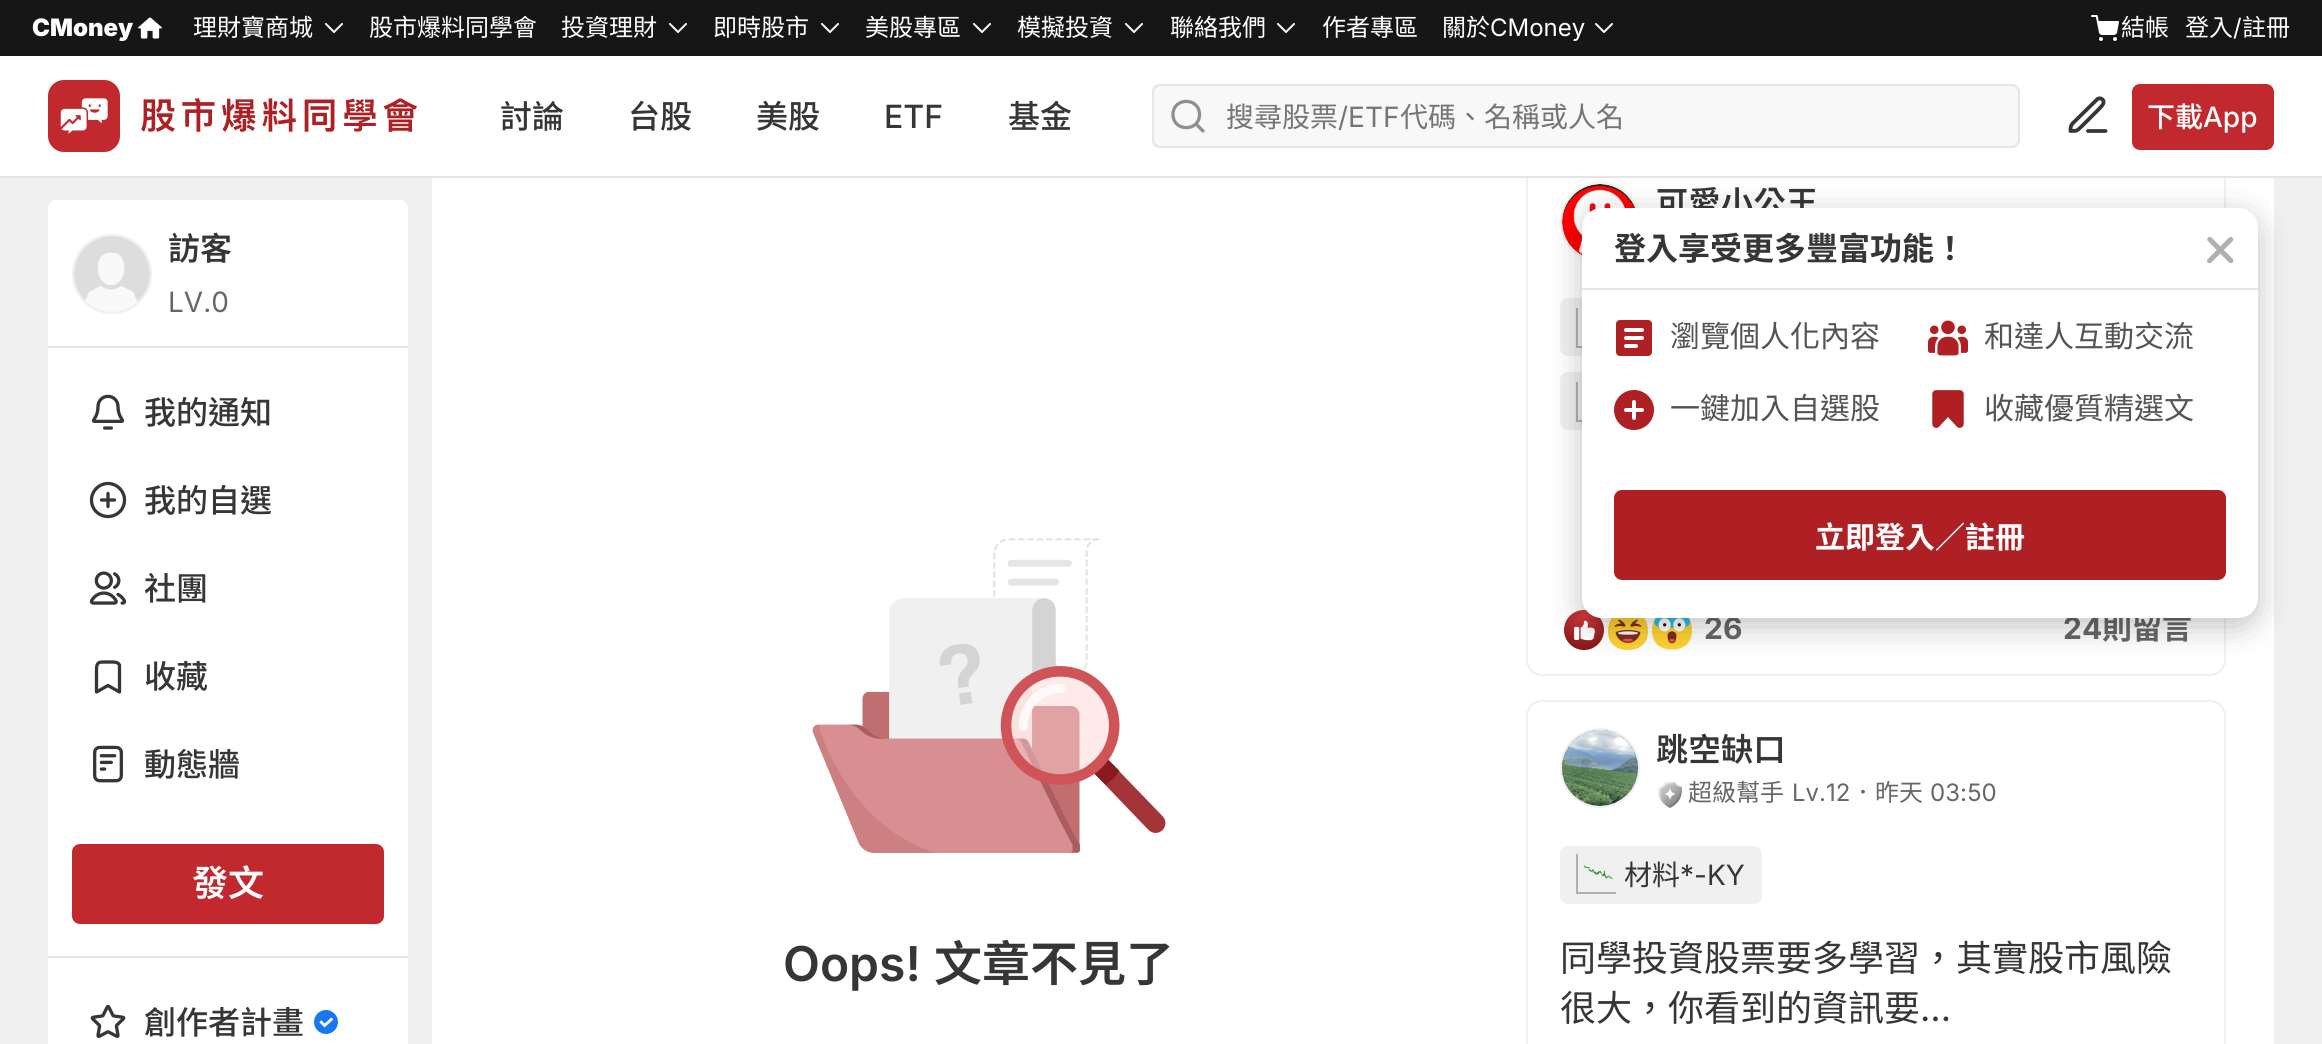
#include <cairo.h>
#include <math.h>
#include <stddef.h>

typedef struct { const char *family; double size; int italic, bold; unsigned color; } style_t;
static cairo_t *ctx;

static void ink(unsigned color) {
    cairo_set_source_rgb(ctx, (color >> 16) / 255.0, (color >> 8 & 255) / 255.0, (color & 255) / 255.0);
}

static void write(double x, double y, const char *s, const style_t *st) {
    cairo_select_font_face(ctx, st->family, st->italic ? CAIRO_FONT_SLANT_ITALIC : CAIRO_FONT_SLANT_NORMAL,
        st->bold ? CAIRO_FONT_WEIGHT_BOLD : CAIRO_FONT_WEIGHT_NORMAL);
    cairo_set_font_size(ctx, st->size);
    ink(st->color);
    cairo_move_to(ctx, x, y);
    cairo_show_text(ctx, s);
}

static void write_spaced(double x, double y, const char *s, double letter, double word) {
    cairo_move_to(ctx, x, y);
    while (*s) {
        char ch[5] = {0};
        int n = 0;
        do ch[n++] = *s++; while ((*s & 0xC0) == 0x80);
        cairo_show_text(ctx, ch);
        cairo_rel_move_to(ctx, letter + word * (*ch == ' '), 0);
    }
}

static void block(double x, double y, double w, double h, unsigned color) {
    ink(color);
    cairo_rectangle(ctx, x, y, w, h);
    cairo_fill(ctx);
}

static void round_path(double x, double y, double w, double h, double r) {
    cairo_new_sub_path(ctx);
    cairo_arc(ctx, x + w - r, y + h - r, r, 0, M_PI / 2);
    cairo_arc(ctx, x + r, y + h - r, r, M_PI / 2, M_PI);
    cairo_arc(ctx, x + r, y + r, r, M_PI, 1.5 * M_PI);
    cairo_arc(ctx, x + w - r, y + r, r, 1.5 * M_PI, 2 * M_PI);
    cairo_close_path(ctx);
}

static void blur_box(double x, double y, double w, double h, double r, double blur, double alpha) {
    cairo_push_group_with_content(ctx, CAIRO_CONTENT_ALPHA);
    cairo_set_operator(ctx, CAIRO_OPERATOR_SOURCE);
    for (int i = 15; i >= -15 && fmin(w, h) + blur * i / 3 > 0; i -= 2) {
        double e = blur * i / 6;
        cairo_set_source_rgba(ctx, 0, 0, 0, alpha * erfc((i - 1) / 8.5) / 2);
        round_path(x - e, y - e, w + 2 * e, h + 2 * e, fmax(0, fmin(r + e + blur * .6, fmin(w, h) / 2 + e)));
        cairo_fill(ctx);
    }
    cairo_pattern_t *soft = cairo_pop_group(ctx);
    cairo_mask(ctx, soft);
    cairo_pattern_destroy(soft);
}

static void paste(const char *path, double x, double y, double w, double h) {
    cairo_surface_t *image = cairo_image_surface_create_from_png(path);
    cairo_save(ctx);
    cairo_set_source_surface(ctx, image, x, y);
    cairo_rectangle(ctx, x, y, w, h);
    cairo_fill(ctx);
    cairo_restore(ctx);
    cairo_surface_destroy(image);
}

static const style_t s1 = {"Inter Black", 24, 0, 0, 0xffffff};
static const style_t s2 = {"Noto Sans TC", 24, 0, 0, 0xffffff};
static const style_t s3 = {"Inter", 24, 0, 0, 0xffffff};
static const style_t s4 = {"Noto Sans TC Medium", 32, 0, 0, 0x363636};
static const style_t s5 = {"Inter Medium", 32, 0, 0, 0x363636};
static const style_t s6 = {"Noto Sans TC", 28, 0, 0, 0x757575};
static const style_t s7 = {"Inter", 28, 0, 0, 0x757575};
static const style_t s8 = {"Noto Sans TC Medium", 28, 0, 0, 0xffffff};
static const style_t s9 = {"Inter Medium", 28, 0, 0, 0xffffff};
static const style_t s10 = {"Noto Sans TC SemiBold", 32, 0, 0, 0x363636};
static const style_t s11 = {"Inter", 28, 0, 0, 0x676767};
static const style_t s12 = {"Noto Sans TC SemiBold", 36, 0, 0, 0xffffff};
static const style_t s13 = {"Inter SemiBold", 48, 0, 0, 0x363636};
static const style_t s14 = {"Noto Sans TC SemiBold", 48, 0, 0, 0x363636};
static const style_t s15 = {"Inter", 30, 0, 1, 0x676767};
static const style_t s16 = {"Noto Sans TC", 30, 0, 1, 0x676767};
static const style_t s17 = {"Noto Sans TC", 24, 0, 0, 0x676767};
static const style_t s18 = {"Inter", 24, 0, 0, 0x676767};
static const style_t s19 = {"Noto Sans TC", 28, 0, 0, 0x363636};
static const style_t s20 = {"Inter", 28, 0, 0, 0x363636};
static const style_t s21 = {"Noto Sans TC", 36, 0, 0, 0x363636};
static const style_t s22 = {"Inter", 36, 0, 0, 0x363636};
static const style_t s23 = {"Noto Sans TC", 32, 0, 1, 0x363636};
static const style_t s24 = {"Noto Sans TC", 30, 0, 0, 0x545454};
static const style_t s25 = {"Noto Sans TC", 30, 0, 1, 0xffffff};

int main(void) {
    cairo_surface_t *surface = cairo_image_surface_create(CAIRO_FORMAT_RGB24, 2322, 1044);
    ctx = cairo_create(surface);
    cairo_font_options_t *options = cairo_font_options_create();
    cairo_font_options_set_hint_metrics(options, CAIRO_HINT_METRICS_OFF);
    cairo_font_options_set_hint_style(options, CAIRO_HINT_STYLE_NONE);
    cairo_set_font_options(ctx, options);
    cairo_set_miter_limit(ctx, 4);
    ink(0xf0f0f0);
    cairo_paint(ctx);
    block(0, 0, 2322, 56, 0x161616);
    write(32, 36, "CMoney", &s1);
    paste("pic1.png", 138, 17, 24, 22);
    write(193, 36, "理財寶商城", &s2);
    cairo_new_path(ctx);
    cairo_move_to(ctx, 326, 24);
    cairo_line_to(ctx, 334, 32);
    cairo_line_to(ctx, 342, 24);
    cairo_set_line_cap(ctx, CAIRO_LINE_CAP_ROUND);
    cairo_set_line_join(ctx, CAIRO_LINE_JOIN_ROUND);
    cairo_stroke(ctx);
    write(369, 36, "股市爆料同學會", &s2);
    write(561, 36, "投資理財", &s2);
    cairo_new_path(ctx);
    cairo_move_to(ctx, 670, 24);
    cairo_line_to(ctx, 678, 32);
    cairo_line_to(ctx, 686, 24);
    cairo_stroke(ctx);
    write(713, 36, "即時股市", &s2);
    cairo_new_path(ctx);
    cairo_move_to(ctx, 822, 24);
    cairo_line_to(ctx, 830, 32);
    cairo_line_to(ctx, 838, 24);
    cairo_stroke(ctx);
    write(865, 36, "美股專區", &s2);
    cairo_new_path(ctx);
    cairo_move_to(ctx, 974, 24);
    cairo_line_to(ctx, 982, 32);
    cairo_line_to(ctx, 990, 24);
    cairo_stroke(ctx);
    write(1017, 36, "模擬投資", &s2);
    cairo_new_path(ctx);
    cairo_move_to(ctx, 1126, 24);
    cairo_line_to(ctx, 1134, 32);
    cairo_line_to(ctx, 1142, 24);
    cairo_stroke(ctx);
    write(1170, 36, "聯絡我們", &s2);
    cairo_new_path(ctx);
    cairo_move_to(ctx, 1278, 24);
    cairo_line_to(ctx, 1286, 32);
    cairo_line_to(ctx, 1294, 24);
    cairo_stroke(ctx);
    write(1322, 36, "作者專區", &s2);
    write(1442, 36, "關於", &s2);
    write(1490, 36, "CMoney", &s3);
    cairo_new_path(ctx);
    cairo_move_to(ctx, 1596, 24);
    cairo_line_to(ctx, 1604, 32);
    cairo_line_to(ctx, 1612, 24);
    cairo_stroke(ctx);
    paste("pic2.png", 2091, 15, 28, 26);
    write(2121, 36, "結帳", &s2);
    write(2185, 36, "登入", &s2);
    write(2233, 36, "/", &s3);
    write(2242, 36, "註冊", &s2);
    block(432, 178, 1842, 866, 0xffffff);
    round_path(1527, 153, 698, 522, 15);
    ink(0xf0f0f0);
    cairo_set_line_cap(ctx, CAIRO_LINE_CAP_BUTT);
    cairo_set_line_join(ctx, CAIRO_LINE_JOIN_MITER);
    cairo_stroke(ctx);
    block(0, 176, 2322, 2, 0xe5e5e5);
    block(0, 56, 2322, 120, 0xffffff);
    paste("pic3.png", 48, 80, 370, 72);
    write(500, 128, "討論", &s4);
    write(628, 128, "台股", &s4);
    write(756, 128, "美股", &s4);
    write(884, 128, "ETF", &s5);
    write(1008, 128, "基金", &s4);
    ink(0xf8f8f8);
    round_path(1153, 85, 866, 62, 7);
    cairo_fill_preserve(ctx);
    ink(0xe5e5e5);
    cairo_stroke(ctx);
    cairo_new_path(ctx);
    cairo_move_to(ctx, 1203, 131);
    cairo_line_to(ctx, 1196, 124);
    cairo_move_to(ctx, 1199.5, 114.5);
    cairo_curve_to(ctx, 1199.5, 132, 1173, 132, 1173, 114.5);
    cairo_curve_to(ctx, 1173, 97, 1199.5, 97, 1199.5, 114.5);
    cairo_close_path(ctx);
    ink(0x8f8f8f);
    cairo_set_line_width(ctx, 3.3);
    cairo_set_line_cap(ctx, CAIRO_LINE_CAP_ROUND);
    cairo_set_line_join(ctx, CAIRO_LINE_JOIN_ROUND);
    cairo_stroke(ctx);
    write(1226, 127, "搜尋股票", &s6);
    write(1338, 127, "/ETF", &s7);
    write(1400, 127, "代碼、名稱或人名", &s6);
    cairo_new_path(ctx);
    cairo_move_to(ctx, 2088, 131);
    cairo_line_to(ctx, 2105.5, 131);
    cairo_move_to(ctx, 2070.5, 131);
    cairo_curve_to(ctx, 2078, 131, 2076.5, 131, 2082.5, 125.5);
    cairo_line_to(ctx, 2098.5, 109.5);
    cairo_curve_to(ctx, 2100.5, 107, 2106, 103, 2102.5, 99.5);
    cairo_curve_to(ctx, 2101, 98, 2099, 98, 2097.5, 99);
    cairo_line_to(ctx, 2072.5, 123.5);
    cairo_curve_to(ctx, 2070.5, 126, 2070.5, 128, 2070.5, 131);
    cairo_close_path(ctx);
    ink(0x363636);
    cairo_set_line_width(ctx, 3.8);
    cairo_stroke(ctx);
    ink(0xc2292e);
    round_path(2132, 84, 142, 66, 8);
    cairo_fill(ctx);
    write(2147, 127, "下載", &s8);
    write(2203, 127, "App", &s9);
    round_path(48, 200, 360, 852, 8);
    cairo_fill(ctx);
    cairo_arc(ctx, 112, 274, 39, 0, 2 * M_PI);
    ink(0xf0f0f0);
    cairo_set_line_width(ctx, 2);
    cairo_set_line_cap(ctx, CAIRO_LINE_CAP_BUTT);
    cairo_set_line_join(ctx, CAIRO_LINE_JOIN_MITER);
    cairo_stroke(ctx);
    paste("pic4.png", 74, 236, 76, 76);
    write(168, 260, "訪客", &s10);
    write(168, 312, "LV.0", &s11);
    block(48, 346, 360, 2, 0xe5e5e5);
    paste("pic5.png", 91, 394, 34, 36);
    write(144, 424, "我的通知", &s4);
    cairo_new_path(ctx);
    cairo_move_to(ctx, 108, 493.5);
    cairo_line_to(ctx, 108, 506.5);
    cairo_move_to(ctx, 101.5, 500);
    cairo_line_to(ctx, 114.5, 500);
    cairo_move_to(ctx, 124.5, 500);
    cairo_curve_to(ctx, 124.5, 509.5, 117, 516.5, 108, 516.5);
    cairo_curve_to(ctx, 99, 516.5, 91.5, 509.5, 91.5, 500);
    cairo_curve_to(ctx, 91.5, 491, 99, 483.5, 108, 483.5);
    cairo_curve_to(ctx, 117, 483.5, 124.5, 491, 124.5, 500);
    cairo_close_path(ctx);
    cairo_set_line_width(ctx, 3.3);
    cairo_set_line_cap(ctx, CAIRO_LINE_CAP_ROUND);
    cairo_set_line_join(ctx, CAIRO_LINE_JOIN_ROUND);
    cairo_stroke(ctx);
    write(144, 512, "我的自選", &s4);
    paste("pic6.png", 89, 571, 38, 34);
    write(144, 600, "社團", &s4);
    cairo_new_path(ctx);
    cairo_move_to(ctx, 96.5, 670);
    cairo_curve_to(ctx, 96.5, 662, 98.5, 662, 105.5, 662);
    cairo_line_to(ctx, 111.5, 662);
    cairo_curve_to(ctx, 114.5, 662, 118, 662, 119.5, 665);
    cairo_line_to(ctx, 119.5, 670);
    cairo_line_to(ctx, 119.5, 692);
    cairo_line_to(ctx, 108, 685.5);
    cairo_line_to(ctx, 96.5, 692);
    cairo_close_path(ctx);
    cairo_stroke(ctx);
    write(144, 688, "收藏", &s4);
    paste("pic7.png", 93, 745, 30, 38);
    write(144, 776, "動態牆", &s4);
    ink(0xc2292e);
    round_path(72, 844, 312, 80, 8);
    cairo_fill(ctx);
    write(192, 896, "發文", &s12);
    block(48, 956, 360, 2, 0xe5e5e5);
    paste("pic8.png", 90, 1004, 36, 34);
    write(144, 1034, "創作者計畫", &s4);
    paste("pic9.png", 314, 1010, 24, 24);
    paste("pic10.png", 812, 538, 354, 315);
    write(783, 981, "Oops!", &s13);
    write(934, 981, "文章不見了", &s14);
    cairo_new_path(ctx);
    cairo_arc(ctx, 1600, 222, 39, 0, 2 * M_PI);
    ink(0xf0f0f0);
    cairo_set_line_width(ctx, 2);
    cairo_set_line_cap(ctx, CAIRO_LINE_CAP_BUTT);
    cairo_set_line_join(ctx, CAIRO_LINE_JOIN_MITER);
    cairo_stroke(ctx);
    paste("pic11.png", 1562, 184, 74, 71);
    cairo_set_font_size(ctx, 32);
    ink(0x363636);
    write_spaced(1656, 214, "可愛小公王", 0.5, 0);
    ink(0xf0f0f0);
    round_path(1560, 298, 164, 58, 8);
    cairo_fill(ctx);
    block(1576, 346, 6, 2, 0xb0b0b0);
    block(1576, 308, 2, 40, 0xb0b0b0);
    ink(0xf0f0f0);
    round_path(1560, 372, 136, 58, 8);
    cairo_fill(ctx);
    block(1576, 420, 6, 2, 0xb0b0b0);
    block(1576, 382, 2, 40, 0xb0b0b0);
    paste("pic12.png", 1564, 610, 40, 40);
    paste("pic13.png", 1608, 618, 40, 32);
    paste("pic14.png", 1652, 618, 40, 32);
    write(1704, 639, "26", &s15);
    write(2063, 639, "24", &s15);
    write(2102, 639, "則留言", &s16);
    round_path(1527, 701, 698, 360, 15);
    ink(0xf0f0f0);
    cairo_stroke(ctx);
    cairo_arc(ctx, 1600, 768, 39, 0, 2 * M_PI);
    cairo_stroke(ctx);
    paste("pic15.png", 1562, 730, 76, 76);
    cairo_select_font_face(ctx, "Noto Sans TC SemiBold", CAIRO_FONT_SLANT_NORMAL, CAIRO_FONT_WEIGHT_NORMAL);
    cairo_set_font_size(ctx, 32);
    ink(0x363636);
    write_spaced(1656, 761, "跳空缺口", 0.5, 0);
    paste("pic16.png", 1658, 782, 24, 26);
    write(1688, 801, "超級幫手", &s17);
    write(1792, 801, "Lv.12", &s18);
    write(1851, 801, "．昨天", &s17);
    write(1930, 801, "03:50", &s18);
    ink(0xf0f0f0);
    round_path(1560, 846, 202, 58, 8);
    cairo_fill(ctx);
    block(1576, 892, 40, 2, 0xb0b0b0);
    block(1576, 854, 2, 40, 0xb0b0b0);
    paste("pic17.png", 1583, 865, 30, 15);
    write(1624, 885, "材料", &s19);
    write(1680, 885, "*-KY", &s20);
    write(1560, 971, "同學投資股票要多學習，其實股市風險", &s21);
    write(1560, 1021, "很大，你看到的資訊要", &s21);
    write(1920, 1021, "...", &s22);
    ink(0x000000);
    blur_box(1582, 216, 676, 410, 20, 16, 0.25);
    ink(0xffffff);
    round_path(1582, 208, 676, 410, 20);
    cairo_fill(ctx);
    block(1582, 288, 676, 2, 0xe5e5e5);
    write(1614, 260, "登入享受更多豐富功能！", &s23);
    paste("pic18.png", 2207, 236, 27, 28);
    paste("pic19.png", 1616, 320, 36, 36);
    write(1670, 347, "瀏覽個人化內容", &s24);
    paste("pic20.png", 1928, 320, 40, 36);
    write(1984, 347, "和達人互動交流", &s24);
    paste("pic21.png", 1614, 390, 40, 40);
    write(1670, 419, "一鍵加入自選股", &s24);
    paste("pic22.png", 1932, 390, 32, 38);
    write(1984, 419, "收藏優質精選文", &s24);
    ink(0xae2024);
    round_path(1614, 490, 612, 90, 8);
    cairo_fill(ctx);
    write(1815, 548, "立即登入／註冊", &s25);
    cairo_surface_write_to_png(surface, "screenshot.png");
    cairo_font_options_destroy(options);
    cairo_destroy(ctx);
    cairo_surface_destroy(surface);
    return 0;
}
